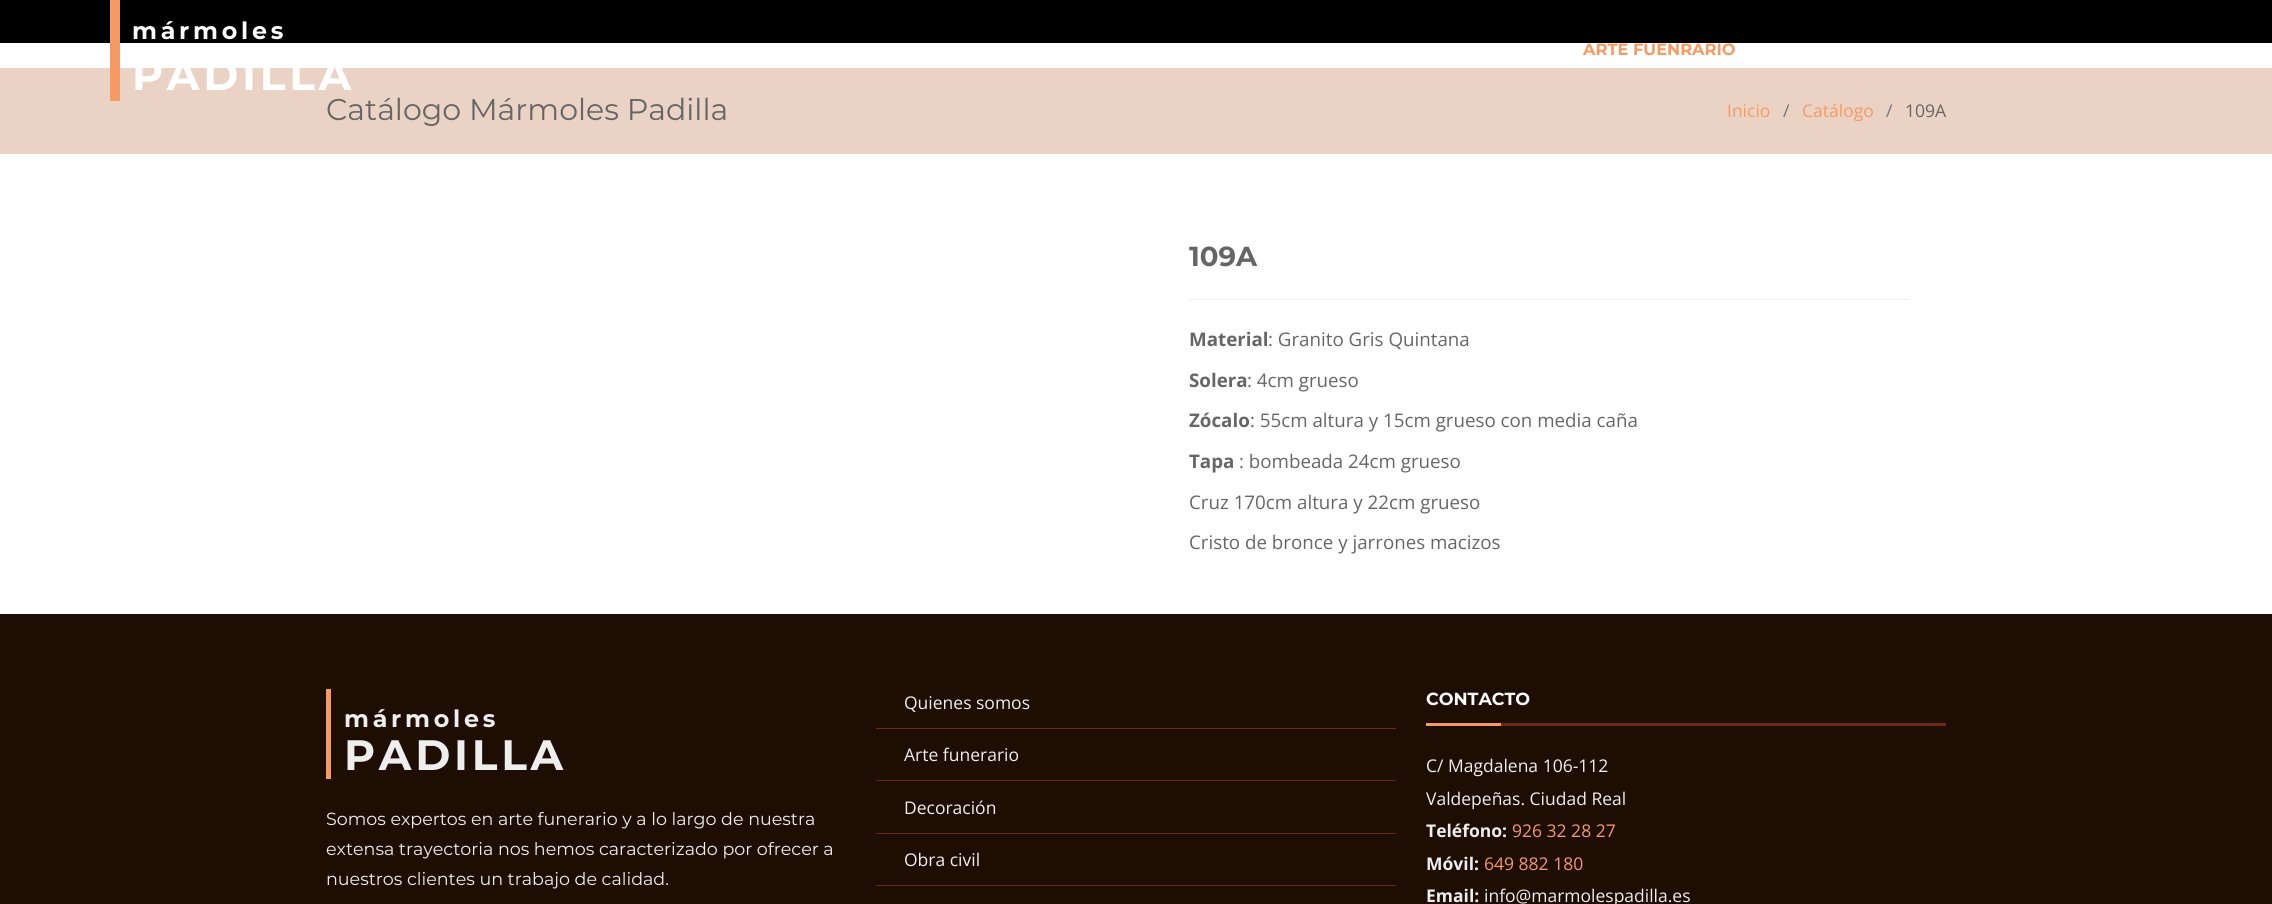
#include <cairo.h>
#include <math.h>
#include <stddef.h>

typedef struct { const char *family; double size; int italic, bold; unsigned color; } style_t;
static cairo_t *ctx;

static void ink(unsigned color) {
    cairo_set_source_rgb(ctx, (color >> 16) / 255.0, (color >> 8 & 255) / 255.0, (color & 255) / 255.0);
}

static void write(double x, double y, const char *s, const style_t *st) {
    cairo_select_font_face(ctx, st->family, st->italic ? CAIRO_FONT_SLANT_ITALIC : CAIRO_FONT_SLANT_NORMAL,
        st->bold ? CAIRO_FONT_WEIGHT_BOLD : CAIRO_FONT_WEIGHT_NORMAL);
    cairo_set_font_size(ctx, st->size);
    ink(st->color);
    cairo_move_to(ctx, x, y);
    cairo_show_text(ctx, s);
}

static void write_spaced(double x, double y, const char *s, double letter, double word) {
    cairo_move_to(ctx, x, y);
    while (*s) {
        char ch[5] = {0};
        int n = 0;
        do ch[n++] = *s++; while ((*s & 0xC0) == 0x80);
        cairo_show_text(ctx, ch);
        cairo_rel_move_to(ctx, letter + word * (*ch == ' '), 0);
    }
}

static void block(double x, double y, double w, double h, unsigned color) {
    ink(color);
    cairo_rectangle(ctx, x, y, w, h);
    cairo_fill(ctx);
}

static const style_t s1 = {"Montserrat", 16.25, 0, 1, 0xf69a62};
static const style_t s2 = {"Montserrat", 30, 0, 0, 0x666666};
static const style_t s3 = {"Open Sans", 17.5, 0, 0, 0xf69a62};
static const style_t s4 = {"Open Sans", 17.5, 0, 0, 0x6c757d};
static const style_t s5 = {"Open Sans", 17.5, 0, 0, 0x666666};
static const style_t s6 = {"Montserrat", 27.5, 0, 1, 0x666666};
static const style_t s7 = {"Open Sans", 18.75, 0, 1, 0x666666};
static const style_t s8 = {"Open Sans", 18.75, 0, 0, 0x666666};
static const style_t s9 = {"Montserrat", 17.5, 0, 0, 0xeeeeee};
static const style_t s10 = {"Open Sans", 17.5, 0, 0, 0xeeeeee};
static const style_t s11 = {"Montserrat", 17.5, 0, 1, 0xffffff};
static const style_t s12 = {"Open Sans", 17.5, 0, 1, 0xeeeeee};

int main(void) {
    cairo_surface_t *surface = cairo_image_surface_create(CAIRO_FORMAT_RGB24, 2272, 904);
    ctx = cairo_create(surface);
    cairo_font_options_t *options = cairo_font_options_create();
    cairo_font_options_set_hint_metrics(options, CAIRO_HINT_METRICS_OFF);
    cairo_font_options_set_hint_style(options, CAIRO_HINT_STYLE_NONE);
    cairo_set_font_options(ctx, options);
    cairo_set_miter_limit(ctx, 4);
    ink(0xffffff);
    cairo_paint(ctx);
    block(0, 0, 2272, 43, 0x000000);
    block(0, 68, 2272, 86, 0xead3c4);
    block(110, 0, 10, 101, 0xf69a62);
    cairo_select_font_face(ctx, "Montserrat", CAIRO_FONT_SLANT_NORMAL, CAIRO_FONT_WEIGHT_BOLD);
    cairo_set_font_size(ctx, 23.75);
    ink(0xffffff);
    write_spaced(132, 39, "mármoles", 3.75, 0);
    cairo_set_font_size(ctx, 42.5);
    write_spaced(132, 90, "PADILLA", 3.75, 0);
    write(1583, 55, "ARTE FUENRARIO", &s1);
    write(326, 120, "Catálogo Mármoles Padilla", &s2);
    write(1727, 117, "Inicio", &s3);
    write(1783, 117, "/", &s4);
    write(1802, 117, "Catálogo", &s3);
    write(1886, 117, "/", &s4);
    write(1905, 117, "109A", &s5);
    block(1189, 299, 720, 1, 0xeeeeee);
    write(1189, 266, "109A", &s6);
    write(1189, 346, "Material", &s7);
    write(1268, 346, ": Granito Gris Quintana", &s8);
    write(1189, 387, "Solera", &s7);
    write(1247, 387, ": 4cm grueso", &s8);
    write(1189, 427, "Zócalo", &s7);
    write(1250, 427, ": 55cm altura y 15cm grueso con media caña", &s8);
    write(1189, 468, "Tapa", &s7);
    write(1239, 468, ": bombeada 24cm grueso", &s8);
    write(1189, 509, "Cruz 170cm altura y 22cm grueso", &s8);
    write(1189, 549, "Cristo de bronce y jarrones macizos", &s8);
    block(0, 614, 2272, 290, 0x1e0d03);
    block(326, 689, 5, 90, 0xf69a62);
    cairo_select_font_face(ctx, "Montserrat", CAIRO_FONT_SLANT_NORMAL, CAIRO_FONT_WEIGHT_BOLD);
    cairo_set_font_size(ctx, 23.75);
    ink(0xeeeeee);
    write_spaced(344, 727, "mármoles", 3.75, 0);
    cairo_set_font_size(ctx, 42.5);
    write_spaced(344, 770, "PADILLA", 3.75, 0);
    write(326, 825, "Somos expertos en arte funerario y a lo largo de nuestra", &s9);
    write(326, 855, "extensa trayectoria nos hemos caracterizado por ofrecer a", &s9);
    write(326, 885, "nuestros clientes un trabajo de calidad.", &s9);
    block(876, 728, 520, 1, 0x682e0d);
    write(904, 709, "Quienes somos", &s10);
    block(876, 780, 520, 1, 0x682e0d);
    write(904, 761, "Arte funerario", &s10);
    block(876, 833, 520, 1, 0x682e0d);
    write(904, 814, "Decoración", &s10);
    block(876, 885, 520, 1, 0x682e0d);
    write(904, 866, "Obra civil", &s10);
    write(1426, 705, "CONTACTO", &s11);
    block(1426, 723, 75, 3, 0xf69a62);
    block(1501, 723, 445, 3, 0x682e0d);
    write(1426, 772, "C/ Magdalena 106-112", &s10);
    write(1426, 805, "Valdepeñas. Ciudad Real", &s10);
    write(1426, 837, "Teléfono:", &s12);
    write(1512, 837, "926 32 28 27", &s3);
    write(1426, 870, "Móvil:", &s12);
    write(1484, 870, "649 882 180", &s3);
    write(1426, 902, "Email:", &s12);
    write(1484, 902, "info@marmolespadilla.es", &s10);
    cairo_surface_write_to_png(surface, "screenshot.png");
    cairo_font_options_destroy(options);
    cairo_destroy(ctx);
    cairo_surface_destroy(surface);
    return 0;
}
